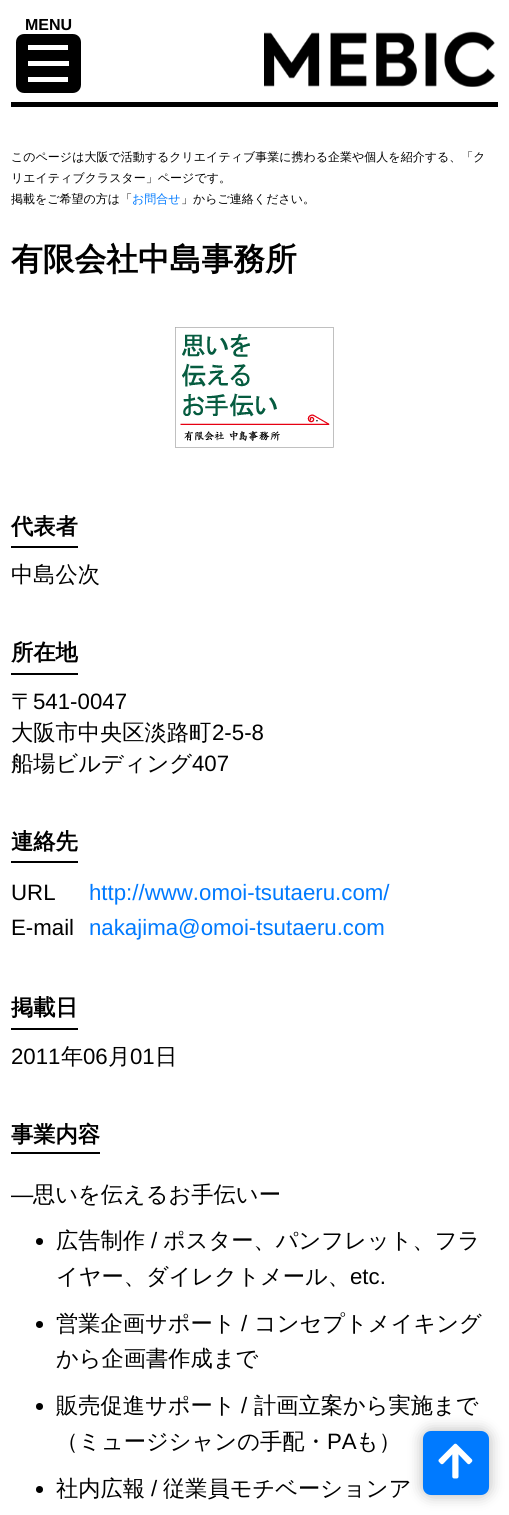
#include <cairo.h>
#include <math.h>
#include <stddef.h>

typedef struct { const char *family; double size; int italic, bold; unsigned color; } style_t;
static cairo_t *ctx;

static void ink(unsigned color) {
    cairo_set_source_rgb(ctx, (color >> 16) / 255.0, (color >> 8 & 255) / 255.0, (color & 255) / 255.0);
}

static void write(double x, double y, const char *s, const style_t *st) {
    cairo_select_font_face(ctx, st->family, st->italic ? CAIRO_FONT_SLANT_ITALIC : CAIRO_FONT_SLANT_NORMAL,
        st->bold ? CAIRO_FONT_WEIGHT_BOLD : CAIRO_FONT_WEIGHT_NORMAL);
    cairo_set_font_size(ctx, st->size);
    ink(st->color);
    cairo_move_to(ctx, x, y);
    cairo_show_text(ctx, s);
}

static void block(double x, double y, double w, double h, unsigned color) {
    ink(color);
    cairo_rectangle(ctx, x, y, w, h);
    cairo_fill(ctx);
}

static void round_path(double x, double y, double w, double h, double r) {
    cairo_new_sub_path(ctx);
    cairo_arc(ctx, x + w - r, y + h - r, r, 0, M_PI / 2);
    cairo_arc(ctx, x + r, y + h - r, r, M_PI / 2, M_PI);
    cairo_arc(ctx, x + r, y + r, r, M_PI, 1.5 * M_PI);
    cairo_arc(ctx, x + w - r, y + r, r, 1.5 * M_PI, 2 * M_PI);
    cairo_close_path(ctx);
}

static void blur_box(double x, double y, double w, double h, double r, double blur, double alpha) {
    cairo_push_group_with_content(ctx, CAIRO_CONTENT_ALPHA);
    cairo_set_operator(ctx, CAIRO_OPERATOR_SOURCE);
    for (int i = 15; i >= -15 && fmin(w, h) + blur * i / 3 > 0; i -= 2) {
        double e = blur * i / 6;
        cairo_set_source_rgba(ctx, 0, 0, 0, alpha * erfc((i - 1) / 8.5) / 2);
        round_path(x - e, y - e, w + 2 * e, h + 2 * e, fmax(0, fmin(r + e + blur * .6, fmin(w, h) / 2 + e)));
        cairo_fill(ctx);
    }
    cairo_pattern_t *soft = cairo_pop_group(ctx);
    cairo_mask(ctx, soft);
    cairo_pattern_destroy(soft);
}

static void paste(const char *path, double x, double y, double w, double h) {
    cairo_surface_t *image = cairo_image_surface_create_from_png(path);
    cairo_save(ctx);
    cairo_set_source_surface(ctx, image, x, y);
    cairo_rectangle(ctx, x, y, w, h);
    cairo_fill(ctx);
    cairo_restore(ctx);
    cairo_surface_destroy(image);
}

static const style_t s1 = {"Liberation Sans", 16, 0, 1, 0x000000};
static const style_t s2 = {"WenQuanYi Zen Hei Medium", 12, 0, 0, 0x000000};
static const style_t s3 = {"WenQuanYi Zen Hei Medium", 12, 0, 0, 0x007aff};
static const style_t s4 = {"WenQuanYi Zen Hei", 31.75, 0, 1, 0x000000};
static const style_t s5 = {"WenQuanYi Zen Hei", 22.25, 0, 1, 0x000000};
static const style_t s6 = {"WenQuanYi Zen Hei Medium", 22.25, 0, 0, 0x000000};
static const style_t s7 = {"Liberation Sans", 22.25, 0, 0, 0x000000};
static const style_t s8 = {"Liberation Sans", 22.25, 0, 0, 0x007aff};

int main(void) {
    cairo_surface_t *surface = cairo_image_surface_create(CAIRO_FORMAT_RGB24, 509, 1515);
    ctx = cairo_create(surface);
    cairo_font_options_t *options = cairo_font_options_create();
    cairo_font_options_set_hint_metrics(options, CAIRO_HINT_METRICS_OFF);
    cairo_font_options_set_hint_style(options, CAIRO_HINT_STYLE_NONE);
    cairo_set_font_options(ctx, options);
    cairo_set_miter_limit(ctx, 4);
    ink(0xffffff);
    cairo_paint(ctx);
    write(25, 30, "MENU", &s1);
    round_path(22, 40, 53, 47, 2);
    cairo_set_line_width(ctx, 12);
    cairo_stroke(ctx);
    block(28, 46, 41, 15, 0x000000);
    block(28, 66, 41, 15, 0x000000);
    block(28, 45, 40, 5, 0xffffff);
    block(28, 77, 40, 5, 0xffffff);
    block(11, 102, 487, 5, 0x000000);
    paste("pic1.png", 264, 31, 231, 56);
    write(11, 161, "このページは大阪で活動するクリエイティブ事業に携わる企業や個人を紹介する、「ク", &s2);
    write(11, 182, "リエイティブクラスター」ページです。", &s2);
    write(11, 203, "掲載をご希望の方は「", &s2);
    write(132, 203, "お問合せ", &s3);
    write(181, 203, "」からご連絡ください。", &s2);
    write(11, 270, "有限会社中島事務所", &s4);
    paste("pic2.png", 175, 327, 159, 121);
    block(11, 546, 67, 2, 0x000000);
    write(11, 534, "代表者", &s5);
    write(11, 582, "中島公次", &s6);
    block(11, 673, 67, 2, 0x000000);
    write(11, 660, "所在地", &s5);
    write(11, 709, "〒", &s6);
    write(33, 709, "541-0047", &s7);
    write(11, 740, "大阪市中央区淡路町", &s6);
    write(212, 740, "2-5-8", &s7);
    write(11, 771, "船場ビルディング", &s6);
    write(192, 771, "407", &s7);
    block(11, 861, 67, 2, 0x000000);
    write(11, 849, "連絡先", &s5);
    write(11, 900, "URL", &s7);
    write(89, 900, "http://www.omoi-tsutaeru.com/", &s8);
    write(11, 935, "E-mail", &s7);
    write(89, 935, "nakajima@omoi-tsutaeru.com", &s8);
    block(11, 1028, 67, 2, 0x000000);
    write(11, 1015, "掲載日", &s5);
    write(11, 1064, "2011", &s7);
    write(61, 1064, "年", &s6);
    write(83, 1064, "06", &s7);
    write(108, 1064, "月", &s6);
    write(130, 1064, "01", &s7);
    write(155, 1064, "日", &s6);
    block(11, 1152, 89, 2, 0x000000);
    write(11, 1142, "事業内容", &s5);
    write(11, 1202, "―", &s7);
    write(33, 1202, "思いを伝えるお手伝いー", &s6);
    cairo_new_path(ctx);
    cairo_arc(ctx, 39.5, 1241.5, 3.5, 0, 2 * M_PI);
    cairo_fill(ctx);
    write(56, 1248, "広告制作", &s6);
    write(151, 1248, "/", &s7);
    write(163, 1248, "ポスター、パンフレット、フラ", &s6);
    write(56, 1284, "イヤー、ダイレクトメール、", &s6);
    write(350, 1284, "etc.", &s7);
    cairo_new_path(ctx);
    cairo_arc(ctx, 39.5, 1324.5, 3.5, 0, 2 * M_PI);
    cairo_fill(ctx);
    write(56, 1331, "営業企画サポート", &s6);
    write(241, 1331, "/", &s7);
    write(254, 1331, "コンセプトメイキング", &s6);
    write(56, 1366, "から企画書作成まで", &s6);
    cairo_new_path(ctx);
    cairo_arc(ctx, 39.5, 1406.5, 3.5, 0, 2 * M_PI);
    cairo_fill(ctx);
    write(56, 1413, "販売促進サポート", &s6);
    write(241, 1413, "/", &s7);
    write(254, 1413, "計画立案から実施まで", &s6);
    write(56, 1449, "（ミュージシャンの手配・", &s6);
    write(327, 1449, "PA", &s7);
    write(356, 1449, "も）", &s6);
    cairo_new_path(ctx);
    cairo_arc(ctx, 39.5, 1489.5, 3.5, 0, 2 * M_PI);
    cairo_fill(ctx);
    write(56, 1496, "社内広報", &s6);
    write(151, 1496, "/", &s7);
    write(163, 1496, "従業員モチベーションア", &s6);
    ink(0x000000);
    blur_box(423, 1431, 66, 64, 8, 7.5, 0.3);
    ink(0x007aff);
    round_path(423, 1431, 66, 64, 8);
    cairo_fill(ctx);
    paste("pic3.png", 438, 1443, 35, 36);
    cairo_surface_write_to_png(surface, "screenshot.png");
    cairo_font_options_destroy(options);
    cairo_destroy(ctx);
    cairo_surface_destroy(surface);
    return 0;
}
